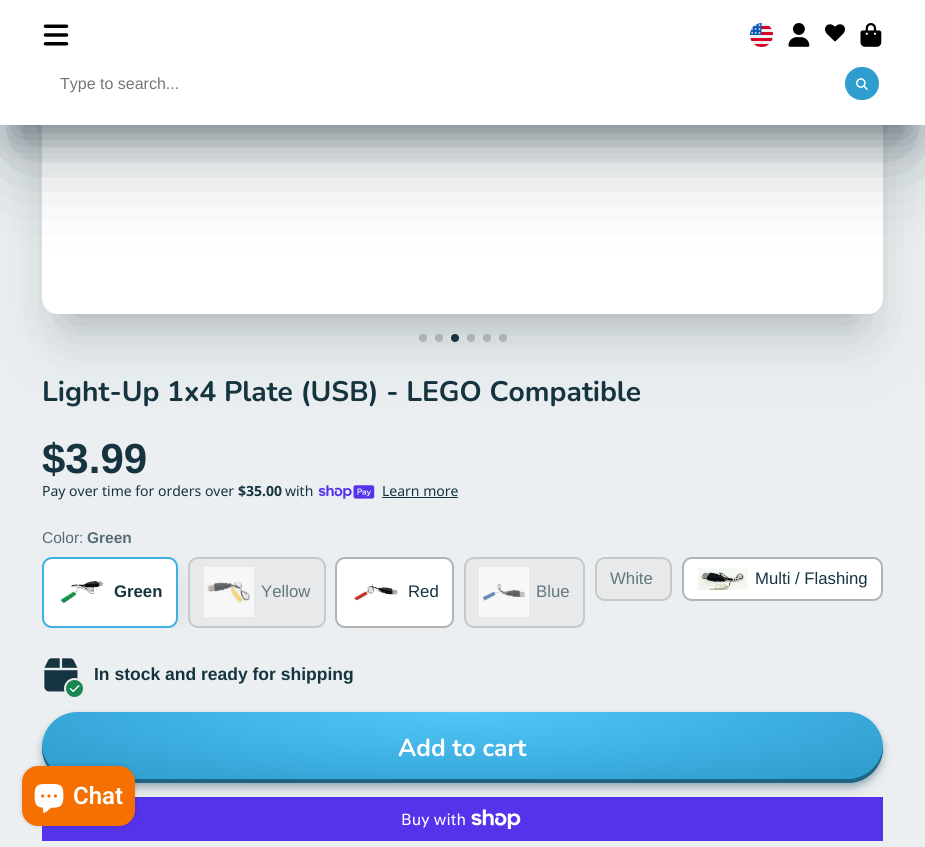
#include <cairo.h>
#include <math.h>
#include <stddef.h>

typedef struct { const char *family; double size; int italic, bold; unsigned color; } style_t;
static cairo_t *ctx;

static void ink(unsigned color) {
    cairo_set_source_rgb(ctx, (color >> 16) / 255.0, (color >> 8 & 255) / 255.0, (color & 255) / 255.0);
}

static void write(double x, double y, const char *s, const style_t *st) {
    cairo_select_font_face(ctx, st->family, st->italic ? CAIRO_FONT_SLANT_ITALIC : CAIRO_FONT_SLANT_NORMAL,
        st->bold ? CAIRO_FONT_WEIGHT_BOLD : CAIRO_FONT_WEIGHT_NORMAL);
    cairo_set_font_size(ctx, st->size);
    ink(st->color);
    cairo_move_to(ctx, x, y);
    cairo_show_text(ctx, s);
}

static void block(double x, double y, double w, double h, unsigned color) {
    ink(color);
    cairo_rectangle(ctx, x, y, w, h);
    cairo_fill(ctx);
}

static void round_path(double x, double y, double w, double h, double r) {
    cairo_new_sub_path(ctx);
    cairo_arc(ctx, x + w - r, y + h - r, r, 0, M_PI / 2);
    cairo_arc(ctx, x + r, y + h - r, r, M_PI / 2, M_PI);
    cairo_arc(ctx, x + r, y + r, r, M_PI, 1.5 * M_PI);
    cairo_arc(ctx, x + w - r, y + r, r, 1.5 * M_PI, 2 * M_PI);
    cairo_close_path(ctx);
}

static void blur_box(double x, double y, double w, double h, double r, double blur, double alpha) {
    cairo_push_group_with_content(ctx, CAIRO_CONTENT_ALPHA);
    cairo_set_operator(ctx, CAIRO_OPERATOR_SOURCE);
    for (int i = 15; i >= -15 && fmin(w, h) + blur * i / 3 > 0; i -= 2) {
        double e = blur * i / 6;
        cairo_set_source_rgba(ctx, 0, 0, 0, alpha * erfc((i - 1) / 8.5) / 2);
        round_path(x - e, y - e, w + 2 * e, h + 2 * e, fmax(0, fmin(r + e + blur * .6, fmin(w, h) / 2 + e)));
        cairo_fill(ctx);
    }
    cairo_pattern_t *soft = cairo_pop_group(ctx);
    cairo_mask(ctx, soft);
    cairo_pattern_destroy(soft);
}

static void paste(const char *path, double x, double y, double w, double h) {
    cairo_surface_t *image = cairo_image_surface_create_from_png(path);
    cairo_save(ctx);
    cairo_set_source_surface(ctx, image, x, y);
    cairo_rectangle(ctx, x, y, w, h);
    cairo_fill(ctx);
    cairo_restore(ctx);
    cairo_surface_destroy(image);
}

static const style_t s1 = {"Liberation Sans", 16, 0, 0, 0x757575};
static const style_t s2 = {"Nunito", 28.2, 0, 1, 0x163340};
static const style_t s3 = {"Liberation Sans", 42, 0, 1, 0x163340};
static const style_t s4 = {"Noto Sans", 14, 0, 0, 0x163340};
static const style_t s5 = {"Noto Sans", 14, 0, 1, 0x163340};
static const style_t s6 = {"Liberation Sans", 15.5, 0, 0, 0x566b75};
static const style_t s7 = {"Liberation Sans", 15.5, 0, 1, 0x566b75};
static const style_t s8 = {"Liberation Sans", 16.75, 0, 0, 0x637780};
static const style_t s9 = {"Liberation Sans", 16.75, 0, 0, 0x163340};
static const style_t s10 = {"Liberation Sans", 16.75, 0, 1, 0x163340};
static const style_t s11 = {"Liberation Sans", 17.5, 0, 1, 0x163340};
static const style_t s12 = {"Nunito", 24.5, 0, 1, 0xffffff};
static const style_t s13 = {"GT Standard", 16, 0, 0, 0xffffff};
static const style_t s14 = {"Roboto SemiBold", 24, 0, 0, 0xffffff};

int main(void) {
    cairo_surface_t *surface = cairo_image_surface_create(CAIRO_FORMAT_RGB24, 925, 847);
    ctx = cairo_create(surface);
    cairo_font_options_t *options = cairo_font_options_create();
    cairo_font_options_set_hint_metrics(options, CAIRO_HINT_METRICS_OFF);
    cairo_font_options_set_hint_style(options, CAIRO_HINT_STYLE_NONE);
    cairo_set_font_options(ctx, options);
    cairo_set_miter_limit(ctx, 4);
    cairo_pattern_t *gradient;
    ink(0xebeff1);
    cairo_paint(ctx);
    ink(0xbcbfc1);
    cairo_arc(ctx, 423, 338, 4, 0, 2 * M_PI);
    cairo_fill(ctx);
    cairo_arc(ctx, 439, 338, 4, 0, 2 * M_PI);
    cairo_fill(ctx);
    ink(0x163340);
    cairo_arc(ctx, 455, 338, 4, 0, 2 * M_PI);
    cairo_fill(ctx);
    ink(0xbcbfc1);
    cairo_arc(ctx, 471, 338, 4, 0, 2 * M_PI);
    cairo_fill(ctx);
    cairo_arc(ctx, 487, 338, 4, 0, 2 * M_PI);
    cairo_fill(ctx);
    cairo_arc(ctx, 503, 338, 4, 0, 2 * M_PI);
    cairo_fill(ctx);
    ink(0x0f242d);
    blur_box(68, -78, 789, 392, 0, 26, 0.3);
    blur_box(60, -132, 806, 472, 0, 44, 0.1);
    paste("pic7.png", 42, 125, 841, 189);
    blur_box(14, 40, 897, 97, 0, 19, 0.4);
    blur_box(14, 58, 897, 97, 0, 44, 0.3);
    block(0, 0, 925, 125, 0xffffff);
    paste("pic1.png", 43, 24, 26, 22);
    paste("pic2.png", 750, 23, 23, 24);
    paste("pic3.png", 788, 23, 22, 24);
    paste("pic4.png", 825, 24, 20, 18);
    paste("pic5.png", 860, 23, 22, 24);
    write(60, 89, "Type to search...", &s1);
    ink(0x2f9ecf);
    round_path(845, 67, 34, 33, 16.5);
    cairo_fill(ctx);
    paste("pic6.png", 856, 78, 12, 12);
    write(42, 401, "Light-Up 1x4 Plate (USB) - LEGO Compatible", &s2);
    write(42, 473, "$3.99", &s3);
    write(42, 496, "Pay over time for orders over", &s4);
    write(238, 496, "$35.00", &s5);
    write(285, 496, "with", &s4);
    paste("pic8.png", 318, 485, 57, 14);
    write(382, 496, "Learn more", &s4);
    block(382, 497, 76, 1, 0x163340);
    cairo_save(ctx);
    cairo_rectangle(ctx, 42, 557, 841, 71);
    cairo_clip(ctx);
    ink(0x0f242d);
    blur_box(56, 578, 108, 43, 0, 14, 0.3);
    cairo_restore(ctx);
    write(42, 543, "Color:", &s6);
    write(87, 543, "Green", &s7);
    ink(0xe8e9ea);
    round_path(596, 558, 75, 42, 9);
    cairo_fill_preserve(ctx);
    ink(0xc7c9c9);
    cairo_stroke(ctx);
    write(610, 584, "White", &s8);
    ink(0xffffff);
    round_path(683, 558, 199, 42, 9);
    cairo_fill_preserve(ctx);
    ink(0xb3b3b3);
    cairo_stroke(ctx);
    paste("pic9.png", 698, 568, 50, 22);
    write(755, 584, "Multi / Flashing", &s9);
    ink(0xffffff);
    round_path(43, 558, 134, 69, 9);
    cairo_fill_preserve(ctx);
    ink(0x3eafe1);
    cairo_stroke(ctx);
    paste("pic10.png", 60, 581, 44, 22);
    write(114, 597, "Green", &s10);
    ink(0xe8e9ea);
    round_path(189, 558, 136, 69, 9);
    cairo_fill_preserve(ctx);
    ink(0xc7c9c9);
    cairo_stroke(ctx);
    paste("pic11.png", 204, 567, 50, 50);
    write(261, 597, "Yellow", &s8);
    ink(0xffffff);
    round_path(336, 558, 117, 69, 9);
    cairo_fill_preserve(ctx);
    ink(0xb3b3b3);
    cairo_stroke(ctx);
    paste("pic12.png", 354, 583, 44, 18);
    write(408, 597, "Red", &s9);
    ink(0xe8e9ea);
    round_path(465, 558, 119, 69, 9);
    cairo_fill_preserve(ctx);
    ink(0xc7c9c9);
    cairo_stroke(ctx);
    paste("pic13.png", 479, 567, 50, 50);
    write(536, 597, "Blue", &s8);
    paste("pic14.png", 44, 658, 34, 34);
    ink(0x198754);
    cairo_arc(ctx, 74.5, 688.5, 9.5, 0, 2 * M_PI);
    cairo_fill_preserve(ctx);
    ink(0xededed);
    cairo_stroke(ctx);
    paste("pic15.png", 69, 685, 11, 7);
    write(94, 680, "In stock and ready for shipping", &s11);
    block(42, 797, 841, 44, 0x5433eb);
    paste("pic16.png", 471, 809, 50, 20);
    ink(0x133f52);
    blur_box(46, 723, 833, 64, 32, 7.5, 0.15);
    blur_box(42, 716, 841, 71, 35.5, 3.5, 0.3);
    cairo_save(ctx);
    round_path(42, 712, 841, 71, 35.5);
    cairo_clip(ctx);
    blur_box(46, 723, 833, 64, 32, 7.5, 0.15);
    blur_box(42, 716, 841, 71, 35.5, 3.5, 0.3);
    cairo_restore(ctx);
    gradient = cairo_pattern_create_radial(0, 0, 0, 0, 0, 1);
    cairo_pattern_set_matrix(gradient, &(cairo_matrix_t){1.0 / 595, 0, 0, 1.0 / 100, -1.0 * 463 / 595, -1.0 * 712 / 100});
    cairo_pattern_add_color_stop_rgba(gradient, 0, 0.322, 0.776, 0.976, 1);
    cairo_pattern_add_color_stop_rgba(gradient, 0.9, 0.184, 0.62, 0.812, 1);
    cairo_set_source(ctx, gradient);
    cairo_pattern_destroy(gradient);
    round_path(42, 712, 841, 71, 35.5);
    cairo_fill(ctx);
    ink(0x1e6584);
    cairo_new_path(ctx);
    cairo_move_to(ctx, 42, 746);
    cairo_curve_to(ctx, 41, 766, 57, 783, 78, 783);
    cairo_line_to(ctx, 848, 783);
    cairo_curve_to(ctx, 868, 783, 884, 766, 883, 746);
    cairo_curve_to(ctx, 882, 764, 866, 779, 848, 779);
    cairo_line_to(ctx, 78, 779);
    cairo_curve_to(ctx, 59, 779, 43, 764, 42, 746);
    cairo_close_path(ctx);
    cairo_fill(ctx);
    write(398, 756, "Add to cart", &s12);
    write(401, 825, "Buy with", &s13);
    ink(0x000000);
    blur_box(22, 766, 113, 60, 16, 2.5, 0.15);
    ink(0xf57000);
    round_path(22, 766, 113, 60, 16);
    cairo_fill(ctx);
    paste("pic17.png", 34, 784, 30, 29);
    write(73, 804, "Chat", &s14);
    cairo_surface_write_to_png(surface, "screenshot.png");
    cairo_font_options_destroy(options);
    cairo_destroy(ctx);
    cairo_surface_destroy(surface);
    return 0;
}
